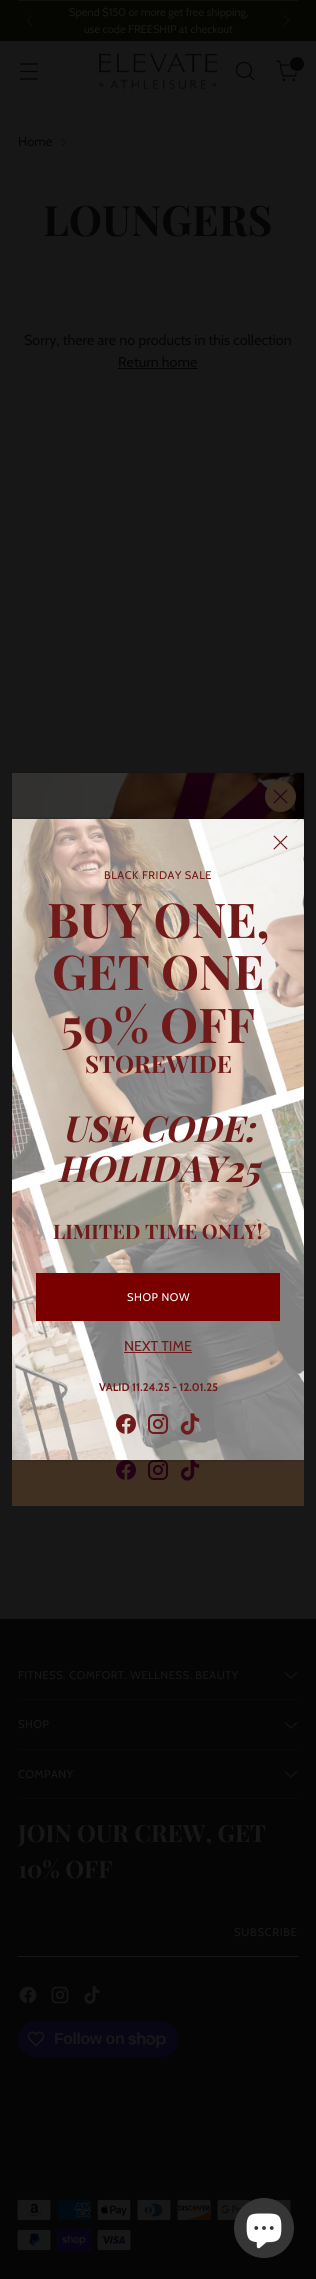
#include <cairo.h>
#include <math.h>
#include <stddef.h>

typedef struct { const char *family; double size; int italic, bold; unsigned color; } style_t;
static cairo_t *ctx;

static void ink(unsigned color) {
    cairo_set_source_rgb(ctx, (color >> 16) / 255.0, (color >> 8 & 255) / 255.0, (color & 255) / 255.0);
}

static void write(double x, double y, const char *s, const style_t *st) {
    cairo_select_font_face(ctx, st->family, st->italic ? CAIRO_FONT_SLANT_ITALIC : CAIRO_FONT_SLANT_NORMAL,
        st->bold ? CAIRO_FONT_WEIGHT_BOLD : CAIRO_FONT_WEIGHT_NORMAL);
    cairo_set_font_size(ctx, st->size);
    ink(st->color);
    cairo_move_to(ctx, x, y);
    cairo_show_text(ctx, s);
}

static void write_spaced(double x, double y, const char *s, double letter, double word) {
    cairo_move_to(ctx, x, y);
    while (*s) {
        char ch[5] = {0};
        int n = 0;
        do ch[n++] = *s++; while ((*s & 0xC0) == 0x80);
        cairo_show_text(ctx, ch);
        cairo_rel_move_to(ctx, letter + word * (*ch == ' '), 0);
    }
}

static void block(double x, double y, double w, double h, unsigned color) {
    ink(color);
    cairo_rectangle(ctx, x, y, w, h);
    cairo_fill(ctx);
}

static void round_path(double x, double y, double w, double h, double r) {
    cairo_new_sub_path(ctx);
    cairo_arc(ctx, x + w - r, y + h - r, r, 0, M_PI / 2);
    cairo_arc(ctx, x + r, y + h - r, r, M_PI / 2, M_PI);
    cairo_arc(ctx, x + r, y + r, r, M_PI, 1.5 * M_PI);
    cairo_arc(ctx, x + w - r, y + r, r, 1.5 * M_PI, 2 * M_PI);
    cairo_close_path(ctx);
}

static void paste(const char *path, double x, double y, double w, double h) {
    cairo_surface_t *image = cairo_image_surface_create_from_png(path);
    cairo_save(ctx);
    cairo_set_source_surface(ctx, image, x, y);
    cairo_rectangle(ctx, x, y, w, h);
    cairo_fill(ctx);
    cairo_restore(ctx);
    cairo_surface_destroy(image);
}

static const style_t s1 = {"Cabin", 11.1, 0, 0, 0x171717};
static const style_t s2 = {"Cabin", 13, 0, 0, 0x050505};
static const style_t s3 = {"Playfair Display", 42, 0, 1, 0x050505};
static const style_t s4 = {"Cabin", 14.25, 0, 0, 0x050505};
static const style_t s5 = {"Playfair Display", 48, 0, 1, 0x711a1a};
static const style_t s6 = {"Playfair Display", 24, 0, 1, 0x711a1a};
static const style_t s7 = {"Playfair Display", 36, 1, 1, 0x711a1a};
static const style_t s8 = {"Playfair Display", 20, 0, 1, 0x711a1a};
static const style_t s9 = {"Cabin", 14.25, 0, 0, 0x711a1a};
static const style_t s10 = {"Cabin", 11.1, 0, 1, 0x711a1a};
static const style_t s11 = {"Playfair Display", 23.75, 0, 1, 0x171717};

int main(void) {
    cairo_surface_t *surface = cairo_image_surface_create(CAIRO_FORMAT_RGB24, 316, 2279);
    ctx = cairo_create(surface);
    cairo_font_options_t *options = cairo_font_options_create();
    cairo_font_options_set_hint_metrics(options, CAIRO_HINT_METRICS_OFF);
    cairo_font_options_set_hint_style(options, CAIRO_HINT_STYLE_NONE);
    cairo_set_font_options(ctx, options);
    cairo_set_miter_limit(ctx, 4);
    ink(0x171717);
    cairo_paint(ctx);
    block(0, 0, 316, 41, 0x050502);
    write(69, 16, "Spend $150 or more get free shipping,", &s1);
    write(84, 33, "use code FREESHIP at checkout", &s1);
    cairo_new_path(ctx);
    cairo_move_to(ctx, 32, 15.5);
    cairo_line_to(ctx, 27, 20.5);
    cairo_line_to(ctx, 32, 25.5);
    ink(0x0e0e0d);
    cairo_set_line_width(ctx, 1);
    cairo_stroke(ctx);
    cairo_new_path(ctx);
    cairo_move_to(ctx, 284, 25.5);
    cairo_line_to(ctx, 289, 20.5);
    cairo_line_to(ctx, 284, 15.5);
    cairo_stroke(ctx);
    cairo_new_path(ctx);
    cairo_move_to(ctx, 20, 71.5);
    cairo_line_to(ctx, 38, 71.5);
    cairo_move_to(ctx, 20, 64);
    cairo_line_to(ctx, 38, 64);
    cairo_move_to(ctx, 20, 79);
    cairo_line_to(ctx, 38, 79);
    ink(0x050505);
    cairo_set_line_width(ctx, 1.3);
    cairo_stroke(ctx);
    paste("pic1.png", 98, 53, 120, 37);
    paste("pic2.png", 235, 61, 20, 20);
    paste("pic3.png", 276, 60, 22, 22);
    cairo_arc(ctx, 297.5, 64.5, 7.5, 0, 2 * M_PI);
    ink(0x171717);
    cairo_set_line_width(ctx, 2);
    cairo_stroke(ctx);
    ink(0x050505);
    cairo_arc(ctx, 297, 64, 7, 0, 2 * M_PI);
    cairo_fill(ctx);
    write(18, 146, "Home", &s2);
    cairo_new_path(ctx);
    cairo_move_to(ctx, 62, 145.5);
    cairo_line_to(ctx, 65.5, 142.5);
    cairo_line_to(ctx, 62, 139);
    ink(0x0c0c0c);
    cairo_set_line_width(ctx, 0.9);
    cairo_stroke(ctx);
    write(43, 236, "LOUNGERS", &s3);
    block(18, 0, 280, 1, 0x0f0f0f);
    write(24, 345, "Sorry, there are no products in this collection", &s4);
    write(118, 367, "Return home", &s4);
    block(118, 368, 80, 1, 0x050505);
    block(12, 1460, 292, 46, 0x403022);
    paste("pic4.png", 11, 772, 294, 153);
    cairo_arc(ctx, 280.5, 796.5, 15.5, 0, 2 * M_PI);
    cairo_fill(ctx);
    paste("pic5.png", 273, 789, 15, 15);
    paste("pic6.png", 116, 1460, 20, 20);
    paste("pic7.png", 148, 1460, 20, 20);
    paste("pic8.png", 180, 1460, 20, 21);
    paste("pic9.png", 12, 817, 292, 645);
    paste("pic10.png", 273, 835, 15, 15);
    cairo_set_font_size(ctx, 11.1);
    ink(0x711a1a);
    write_spaced(104, 879, "BLACK FRIDAY SALE", 0.55, 0);
    write(47, 938, "BUY ONE,", &s5);
    write(52, 990, "GET ONE", &s5);
    write(61, 1043, "50% OFF", &s5);
    write(85, 1073, "STOREWIDE", &s6);
    write(62, 1142, "USE CODE:", &s7);
    write(57, 1182, "HOLIDAY25", &s7);
    write(53, 1239, "LIMITED TIME ONLY!", &s8);
    cairo_save(ctx);
    cairo_rectangle(ctx, 36, 1273, 244, 48);
    cairo_clip(ctx);
    ink(0x7a0000);
    cairo_new_path(ctx);
    cairo_move_to(ctx, -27, 1273);
    cairo_line_to(ctx, 315, 1273);
    cairo_line_to(ctx, 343, 1321);
    cairo_line_to(ctx, 1, 1321);
    cairo_close_path(ctx);
    cairo_fill(ctx);
    cairo_restore(ctx);
    cairo_select_font_face(ctx, "Cabin", CAIRO_FONT_SLANT_NORMAL, CAIRO_FONT_WEIGHT_NORMAL);
    cairo_set_font_size(ctx, 11.1);
    ink(0xffffff);
    write_spaced(127, 1301, "SHOP NOW", 0.55, 0);
    write(124, 1351, "NEXT TIME", &s9);
    block(124, 1352, 68, 1, 0x711a1a);
    write(99, 1391, "VALID 11.24.25 - 12.01.25", &s10);
    paste("pic11.png", 116, 1414, 20, 20);
    paste("pic12.png", 148, 1414, 20, 20);
    paste("pic13.png", 180, 1413, 20, 22);
    block(0, 1619, 316, 660, 0x050505);
    block(18, 1699, 280, 1, 0x090908);
    cairo_select_font_face(ctx, "Cabin", CAIRO_FONT_SLANT_NORMAL, CAIRO_FONT_WEIGHT_NORMAL);
    ink(0x171717);
    write_spaced(18, 1679, "FITNESS. COMFORT. WELLNESS. BEAUTY", 0.55, 0);
    cairo_new_path(ctx);
    cairo_move_to(ctx, 285, 1672.5);
    cairo_line_to(ctx, 291, 1678);
    cairo_line_to(ctx, 297, 1672.5);
    cairo_move_to(ctx, 285, 1722.5);
    cairo_line_to(ctx, 291, 1728);
    cairo_line_to(ctx, 297, 1722.5);
    ink(0x111111);
    cairo_set_line_width(ctx, 1.6);
    cairo_stroke(ctx);
    block(18, 1749, 280, 1, 0x090908);
    ink(0x171717);
    write_spaced(18, 1728, "SHOP", 0.55, 0);
    block(18, 1798, 280, 1, 0x090908);
    ink(0x171717);
    write_spaced(18, 1778, "COMPANY", 0.55, 0);
    cairo_new_path(ctx);
    cairo_move_to(ctx, 285, 1771.5);
    cairo_line_to(ctx, 291, 1777);
    cairo_line_to(ctx, 297, 1771.5);
    ink(0x111111);
    cairo_stroke(ctx);
    write(18, 1842, "JOIN OUR CREW, GET", &s11);
    write(18, 1878, "10% OFF", &s11);
    cairo_select_font_face(ctx, "Cabin", CAIRO_FONT_SLANT_NORMAL, CAIRO_FONT_WEIGHT_NORMAL);
    cairo_set_font_size(ctx, 11.1);
    write_spaced(234, 1936, "SUBSCRIBE", 0.75, 0);
    block(18, 1956, 280, 1, 0x171717);
    paste("pic14.png", 19, 1986, 18, 18);
    paste("pic15.png", 51, 1986, 18, 18);
    paste("pic16.png", 84, 1986, 16, 18);
    ink(0x080515);
    round_path(18, 2021, 160, 36, 18);
    cairo_fill(ctx);
    paste("pic17.png", 27, 2031, 18, 16);
    cairo_select_font_face(ctx, "Liberation Sans", CAIRO_FONT_SLANT_NORMAL, CAIRO_FONT_WEIGHT_BOLD);
    cairo_set_font_size(ctx, 16);
    ink(0x171717);
    write_spaced(54, 2044, "Follow on", -0.5, 0);
    paste("pic18.png", 128, 2032, 38, 16);
    paste("pic19.png", 17, 2199, 34, 22);
    paste("pic20.png", 57, 2199, 34, 22);
    paste("pic21.png", 96, 2199, 36, 22);
    paste("pic22.png", 137, 2199, 34, 22);
    paste("pic23.png", 177, 2199, 34, 22);
    paste("pic24.png", 217, 2199, 34, 22);
    paste("pic25.png", 271, 2199, 20, 16);
    paste("pic26.png", 17, 2229, 34, 22);
    paste("pic27.png", 56, 2229, 36, 22);
    paste("pic28.png", 97, 2229, 34, 22);
    ink(0x363637);
    cairo_arc(ctx, 264, 2228, 30, 0, 2 * M_PI);
    cairo_fill(ctx);
    paste("pic29.png", 246, 2213, 36, 36);
    cairo_surface_write_to_png(surface, "screenshot.png");
    cairo_font_options_destroy(options);
    cairo_destroy(ctx);
    cairo_surface_destroy(surface);
    return 0;
}
